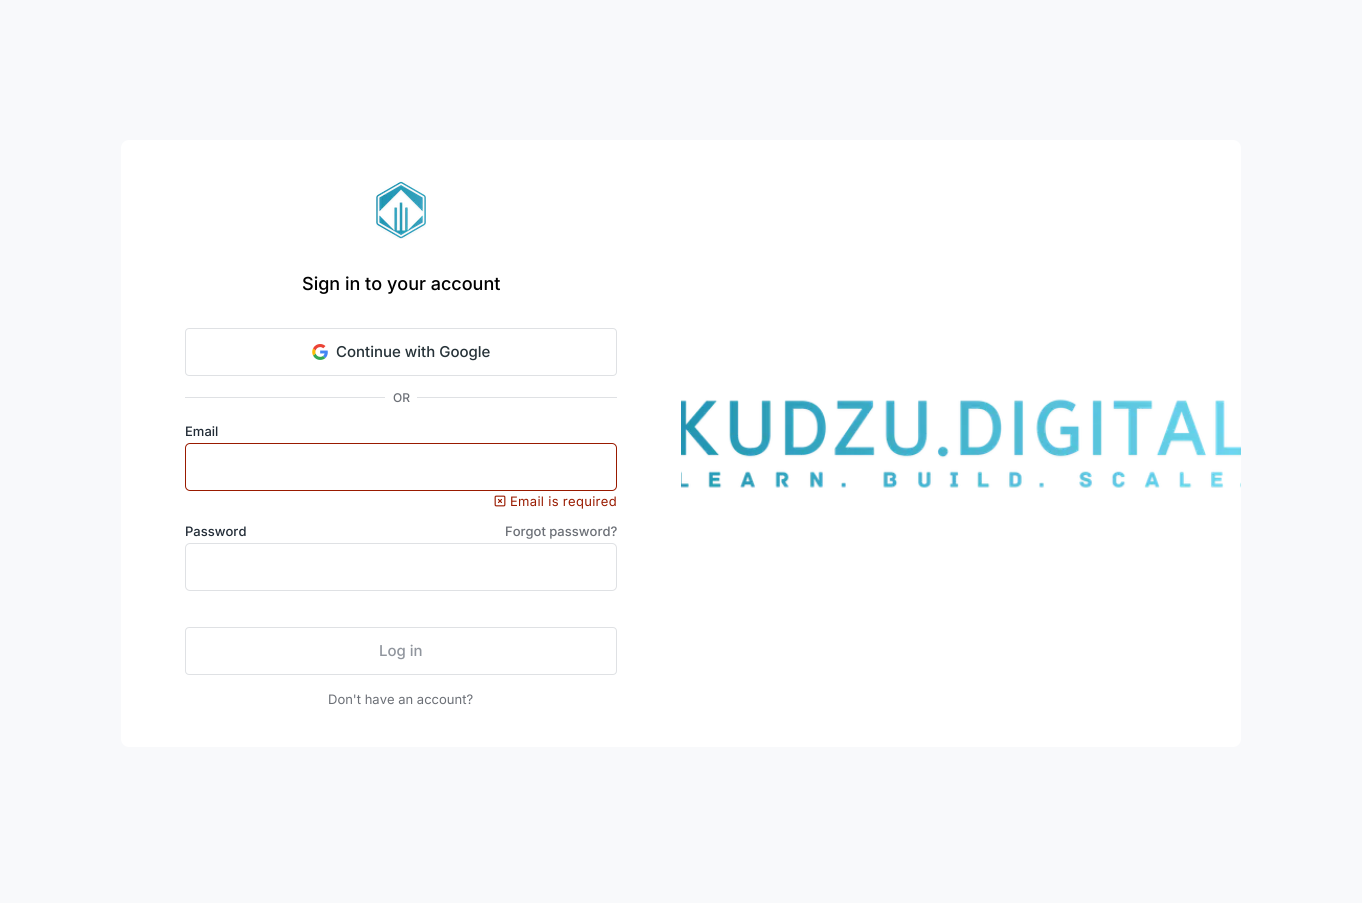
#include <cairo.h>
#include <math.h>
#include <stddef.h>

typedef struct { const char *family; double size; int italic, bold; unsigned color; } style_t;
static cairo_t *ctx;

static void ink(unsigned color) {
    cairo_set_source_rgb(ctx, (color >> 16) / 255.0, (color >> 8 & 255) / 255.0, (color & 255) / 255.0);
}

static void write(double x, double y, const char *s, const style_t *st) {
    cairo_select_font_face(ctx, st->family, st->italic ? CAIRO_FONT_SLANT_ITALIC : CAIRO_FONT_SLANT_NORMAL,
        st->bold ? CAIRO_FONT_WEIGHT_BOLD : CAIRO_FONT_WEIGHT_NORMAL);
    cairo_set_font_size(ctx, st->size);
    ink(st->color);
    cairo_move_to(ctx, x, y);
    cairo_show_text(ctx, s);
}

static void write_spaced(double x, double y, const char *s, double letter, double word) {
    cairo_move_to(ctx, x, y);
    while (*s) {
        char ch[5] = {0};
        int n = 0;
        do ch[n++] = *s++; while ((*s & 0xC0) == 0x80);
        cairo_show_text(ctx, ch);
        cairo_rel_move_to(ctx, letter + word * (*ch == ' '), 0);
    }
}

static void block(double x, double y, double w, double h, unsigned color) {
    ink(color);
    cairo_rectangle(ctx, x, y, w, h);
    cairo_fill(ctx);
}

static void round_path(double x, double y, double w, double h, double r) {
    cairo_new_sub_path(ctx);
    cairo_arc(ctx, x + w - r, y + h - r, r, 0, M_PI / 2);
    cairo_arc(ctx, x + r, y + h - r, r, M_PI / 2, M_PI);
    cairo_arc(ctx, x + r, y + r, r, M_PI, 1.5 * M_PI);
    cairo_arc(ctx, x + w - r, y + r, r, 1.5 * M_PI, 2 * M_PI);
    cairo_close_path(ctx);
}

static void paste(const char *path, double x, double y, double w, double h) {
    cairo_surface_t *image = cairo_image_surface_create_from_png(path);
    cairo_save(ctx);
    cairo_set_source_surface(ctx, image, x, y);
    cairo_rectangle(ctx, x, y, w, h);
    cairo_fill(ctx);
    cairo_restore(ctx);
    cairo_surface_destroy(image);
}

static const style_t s1 = {"Inter Medium", 18, 0, 0, 0x000000};
static const style_t s2 = {"Inter Medium", 15, 0, 0, 0x263238};
static const style_t s3 = {"Inter Medium", 12, 0, 0, 0x6b6f76};
static const style_t s4 = {"Inter Medium", 13, 0, 0, 0x212b36};
static const style_t s5 = {"Inter Medium", 13, 0, 0, 0x6b6f76};
static const style_t s6 = {"Inter Medium", 15, 0, 0, 0x90959d};
static const style_t s7 = {"Inter", 13, 0, 0, 0x6b6f76};

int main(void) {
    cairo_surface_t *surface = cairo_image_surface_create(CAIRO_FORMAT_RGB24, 1362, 903);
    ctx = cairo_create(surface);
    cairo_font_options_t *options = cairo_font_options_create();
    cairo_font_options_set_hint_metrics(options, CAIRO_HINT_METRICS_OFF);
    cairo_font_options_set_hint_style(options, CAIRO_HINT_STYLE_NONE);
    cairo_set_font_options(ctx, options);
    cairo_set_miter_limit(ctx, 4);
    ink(0xf8f9fb);
    cairo_paint(ctx);
    ink(0xffffff);
    round_path(121, 140, 1120, 607, 8);
    cairo_fill(ctx);
    paste("pic1.png", 376, 181, 50, 58);
    write(302, 290, "Sign in to your account", &s1);
    round_path(185.5, 328.5, 431, 47, 3.5);
    ink(0xdfe1e4);
    cairo_set_line_width(ctx, 1);
    cairo_stroke(ctx);
    paste("pic2.png", 312, 344, 16, 16);
    write(336, 357, "Continue with Google", &s2);
    block(185, 397, 200, 1, 0xdfe1e4);
    write(393, 402, "OR", &s3);
    block(417, 397, 200, 1, 0xdfe1e4);
    write(185, 436, "Email", &s4);
    round_path(185.5, 443.5, 431, 47, 4.5);
    ink(0x991a00);
    cairo_stroke(ctx);
    paste("pic3.png", 494, 495, 12, 12);
    cairo_select_font_face(ctx, "Inter", CAIRO_FONT_SLANT_NORMAL, CAIRO_FONT_WEIGHT_NORMAL);
    write_spaced(510, 506, "Email is required", 0.3, 0);
    write(185, 536, "Password", &s4);
    write(505, 536, "Forgot password?", &s5);
    round_path(185.5, 543.5, 431, 47, 4.5);
    ink(0xdfe1e4);
    cairo_stroke(ctx);
    round_path(185.5, 627.5, 431, 47, 3.5);
    cairo_stroke(ctx);
    write(379, 656, "Log in", &s6);
    write(328, 704, "Don't have an account?", &s7);
    paste("pic4.png", 681, 399, 560, 89);
    cairo_surface_write_to_png(surface, "screenshot.png");
    cairo_font_options_destroy(options);
    cairo_destroy(ctx);
    cairo_surface_destroy(surface);
    return 0;
}
